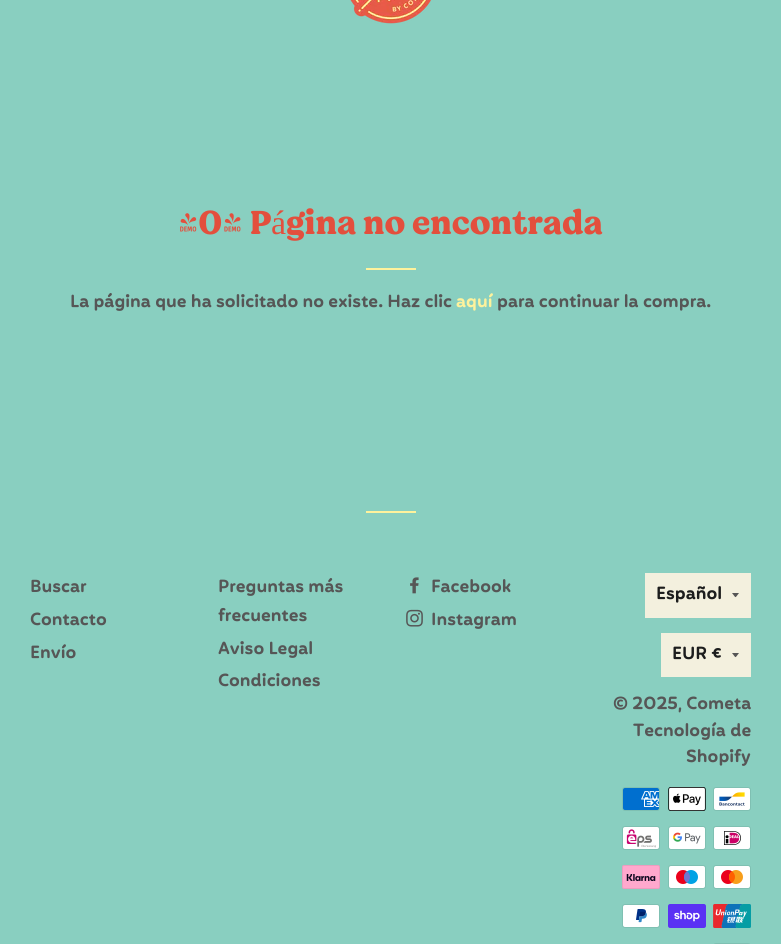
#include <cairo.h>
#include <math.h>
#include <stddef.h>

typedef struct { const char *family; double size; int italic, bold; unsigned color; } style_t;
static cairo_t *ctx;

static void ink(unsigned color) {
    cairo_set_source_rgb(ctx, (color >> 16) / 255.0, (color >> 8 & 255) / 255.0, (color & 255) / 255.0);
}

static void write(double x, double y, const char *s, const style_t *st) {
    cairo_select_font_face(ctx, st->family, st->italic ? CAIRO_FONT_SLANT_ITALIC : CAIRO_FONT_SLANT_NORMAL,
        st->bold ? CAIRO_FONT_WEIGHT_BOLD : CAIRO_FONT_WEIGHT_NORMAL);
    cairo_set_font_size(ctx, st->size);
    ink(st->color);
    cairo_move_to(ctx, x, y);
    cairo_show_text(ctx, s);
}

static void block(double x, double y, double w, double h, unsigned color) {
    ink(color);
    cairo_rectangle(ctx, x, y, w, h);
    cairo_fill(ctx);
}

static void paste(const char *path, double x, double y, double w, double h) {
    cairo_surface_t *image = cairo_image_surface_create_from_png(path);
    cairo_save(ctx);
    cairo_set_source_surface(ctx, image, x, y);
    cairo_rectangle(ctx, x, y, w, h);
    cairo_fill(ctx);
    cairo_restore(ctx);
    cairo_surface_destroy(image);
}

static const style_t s1 = {"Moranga", 34, 0, 1, 0xe34f3d};
static const style_t s2 = {"Liberation Serif", 34, 0, 0, 0xe34f3d};
static const style_t s3 = {"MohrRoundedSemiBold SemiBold", 17, 0, 0, 0x565656};
static const style_t s4 = {"MohrRoundedSemiBold SemiBold", 17, 0, 0, 0xfef29c};
static const style_t s5 = {"MohrRoundedSemiBold SemiBold", 17, 0, 0, 0x1c1d1d};

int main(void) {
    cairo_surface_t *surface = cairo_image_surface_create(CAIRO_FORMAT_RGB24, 781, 944);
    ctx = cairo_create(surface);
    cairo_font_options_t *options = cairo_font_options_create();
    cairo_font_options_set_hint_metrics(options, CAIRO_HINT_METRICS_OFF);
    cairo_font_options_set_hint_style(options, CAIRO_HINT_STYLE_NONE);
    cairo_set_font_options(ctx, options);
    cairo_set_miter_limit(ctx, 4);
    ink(0x89cfc0);
    cairo_paint(ctx);
    paste("pic1.png", 350, 0, 81, 24);
    write(178, 234, "404 P", &s1);
    write(271, 234, "á", &s2);
    write(286, 234, "gina no encontrada", &s1);
    block(366, 268, 50, 2, 0xfef29c);
    write(70, 307, "La página que ha solicitado no existe. Haz clic", &s3);
    write(456, 307, "aquí", &s4);
    write(497, 307, "para continuar la compra.", &s3);
    block(366, 511, 50, 2, 0xfef29c);
    write(30, 592, "Buscar", &s3);
    write(30, 625, "Contacto", &s3);
    write(30, 658, "Envío", &s3);
    write(218, 592, "Preguntas más", &s3);
    write(218, 621, "frecuentes", &s3);
    write(218, 654, "Aviso Legal", &s3);
    write(218, 686, "Condiciones", &s3);
    paste("pic2.png", 410, 577, 9, 17);
    write(431, 592, "Facebook", &s3);
    paste("pic3.png", 406, 609, 17, 18);
    write(431, 625, "Instagram", &s3);
    block(645, 573, 106, 45, 0xf3f0de);
    ink(0x565656);
    cairo_new_path(ctx);
    cairo_move_to(ctx, 732, 593);
    cairo_curve_to(ctx, 736.5, 598.5, 734.5, 598.5, 739, 593);
    cairo_close_path(ctx);
    cairo_fill(ctx);
    write(656, 599, "Español", &s5);
    block(661, 633, 90, 44, 0xf3f0de);
    ink(0x565656);
    cairo_new_path(ctx);
    cairo_move_to(ctx, 732, 653);
    cairo_curve_to(ctx, 736.5, 658.5, 734.5, 658.5, 739, 653);
    cairo_close_path(ctx);
    cairo_fill(ctx);
    write(672, 659, "EUR €", &s5);
    write(613, 709, "© 2025, Cometa", &s3);
    write(633, 736, "Tecnología de", &s3);
    write(686, 762, "Shopify", &s3);
    paste("pic4.png", 622, 787, 38, 24);
    paste("pic5.png", 668, 787, 38, 24);
    paste("pic6.png", 713, 787, 38, 24);
    paste("pic7.png", 622, 826, 38, 24);
    paste("pic8.png", 668, 826, 38, 24);
    paste("pic9.png", 713, 826, 38, 24);
    paste("pic10.png", 622, 865, 38, 24);
    paste("pic11.png", 668, 865, 38, 24);
    paste("pic12.png", 713, 865, 38, 24);
    paste("pic13.png", 622, 904, 38, 24);
    paste("pic14.png", 668, 904, 38, 24);
    paste("pic15.png", 713, 904, 38, 24);
    paste("pic16.png", 714, 943, 36, 1);
    cairo_surface_write_to_png(surface, "screenshot.png");
    cairo_font_options_destroy(options);
    cairo_destroy(ctx);
    cairo_surface_destroy(surface);
    return 0;
}
